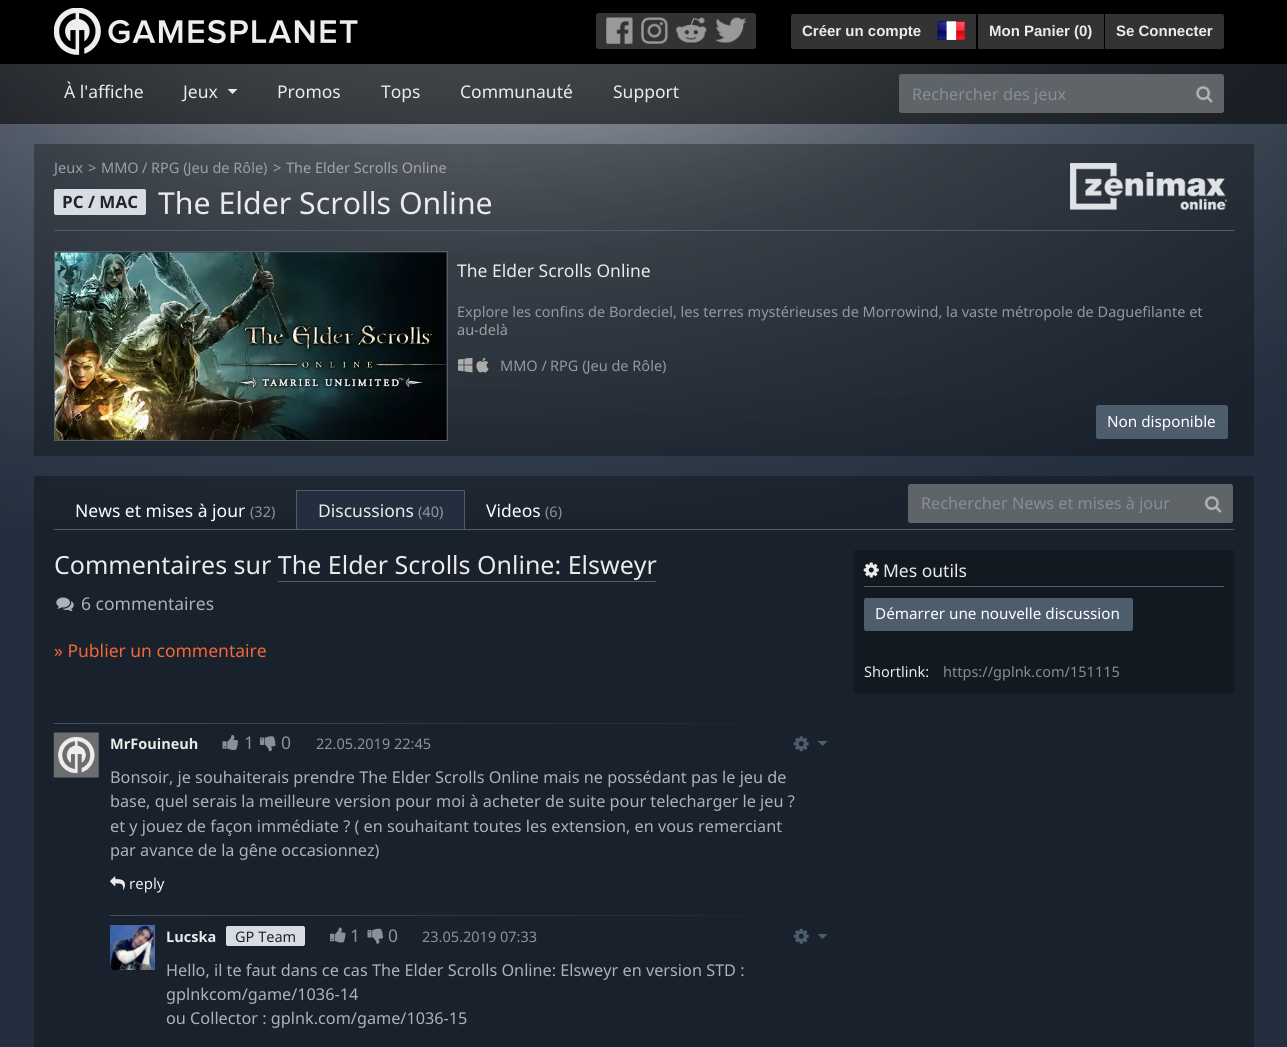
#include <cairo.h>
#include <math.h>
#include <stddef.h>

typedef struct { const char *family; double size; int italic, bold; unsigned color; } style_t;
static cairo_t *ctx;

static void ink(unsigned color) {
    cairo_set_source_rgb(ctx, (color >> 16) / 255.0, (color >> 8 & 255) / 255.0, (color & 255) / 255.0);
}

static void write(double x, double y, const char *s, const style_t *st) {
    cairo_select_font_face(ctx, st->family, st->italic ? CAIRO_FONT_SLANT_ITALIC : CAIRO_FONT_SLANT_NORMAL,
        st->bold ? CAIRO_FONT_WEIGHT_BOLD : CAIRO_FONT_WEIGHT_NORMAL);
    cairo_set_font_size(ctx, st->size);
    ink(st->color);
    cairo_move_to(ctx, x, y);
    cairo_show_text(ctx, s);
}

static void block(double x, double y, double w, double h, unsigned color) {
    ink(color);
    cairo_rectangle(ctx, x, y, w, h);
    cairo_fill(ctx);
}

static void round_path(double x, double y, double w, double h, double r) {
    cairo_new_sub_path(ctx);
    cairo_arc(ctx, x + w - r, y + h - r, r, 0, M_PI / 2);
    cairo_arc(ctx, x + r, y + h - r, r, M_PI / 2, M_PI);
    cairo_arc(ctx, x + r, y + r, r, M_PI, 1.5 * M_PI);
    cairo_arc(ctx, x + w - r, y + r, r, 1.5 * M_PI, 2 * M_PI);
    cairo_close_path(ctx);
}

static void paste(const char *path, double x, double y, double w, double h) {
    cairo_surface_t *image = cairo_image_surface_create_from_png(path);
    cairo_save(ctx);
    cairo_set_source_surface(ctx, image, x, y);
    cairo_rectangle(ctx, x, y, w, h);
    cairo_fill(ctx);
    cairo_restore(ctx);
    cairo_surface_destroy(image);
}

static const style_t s1 = {"Liberation Sans", 15, 0, 1, 0xebebeb};
static const style_t s2 = {"Noto Sans", 17.5, 0, 0, 0xebebeb};
static const style_t s3 = {"Noto Sans", 16.25, 0, 0, 0x868e96};
static const style_t s4 = {"Noto Sans", 14.52, 0, 0, 0x9c9fa3};
static const style_t s5 = {"Noto Sans", 14.52, 0, 0, 0xa3a6a9};
static const style_t s6 = {"Noto Sans", 17, 0, 1, 0x212529};
static const style_t s7 = {"Noto Sans", 30.25, 0, 0, 0xebebeb};
static const style_t s8 = {"Noto Sans", 14.52, 0, 0, 0x95989d};
static const style_t s9 = {"Noto Sans", 15.25, 0, 0, 0xffffff};
static const style_t s10 = {"Noto Sans", 17.5, 0, 0, 0xffffff};
static const style_t s11 = {"Noto Sans", 14.52, 0, 0, 0x8e9297};
static const style_t s12 = {"Noto Sans", 25, 0, 0, 0xebebeb};
static const style_t s13 = {"Noto Sans", 17.5, 0, 0, 0xacb2b8};
static const style_t s14 = {"Noto Sans", 17.5, 0, 0, 0xf26638};
static const style_t s15 = {"Noto Sans", 14.52, 0, 1, 0xebebeb};
static const style_t s16 = {"Noto Sans", 17.5, 0, 0, 0x8e9297};
static const style_t s17 = {"Noto Sans", 16.25, 0, 0, 0xacb2b8};
static const style_t s18 = {"Noto Sans", 15, 0, 0, 0xebebeb};
static const style_t s19 = {"Noto Sans", 14.52, 0, 0, 0x212529};
static const style_t s20 = {"Noto Sans", 14.52, 0, 0, 0xebebeb};
static const style_t s21 = {"Noto Sans", 14.52, 0, 0, 0x898c90};

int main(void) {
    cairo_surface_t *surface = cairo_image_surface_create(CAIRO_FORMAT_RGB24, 1287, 1047);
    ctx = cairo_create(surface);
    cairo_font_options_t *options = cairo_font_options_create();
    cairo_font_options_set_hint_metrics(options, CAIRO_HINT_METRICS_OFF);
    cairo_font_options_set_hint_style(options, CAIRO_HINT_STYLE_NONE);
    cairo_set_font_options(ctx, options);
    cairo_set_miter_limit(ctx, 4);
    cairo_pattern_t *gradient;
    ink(0x232f3e);
    cairo_paint(ctx);
    paste("pic1.png", 0, 64, 1287, 457);
    block(0, 0, 1287, 64, 0x000000);
    paste("pic2.png", 54, 8, 304, 47);
    ink(0x333333);
    cairo_new_path(ctx);
    cairo_move_to(ctx, 598.5, 13);
    cairo_line_to(ctx, 638, 13);
    cairo_line_to(ctx, 638, 49);
    cairo_line_to(ctx, 598.5, 49);
    cairo_curve_to(ctx, 597, 49, 596, 48, 596, 46.5);
    cairo_line_to(ctx, 596, 15.5);
    cairo_curve_to(ctx, 596, 14, 597, 13, 598.5, 13);
    cairo_close_path(ctx);
    cairo_fill(ctx);
    paste("pic3.png", 606, 17, 27, 27);
    block(638, 13, 72, 36, 0x333333);
    paste("pic4.png", 641, 17, 27, 27);
    cairo_new_path(ctx);
    cairo_move_to(ctx, 710, 13);
    cairo_line_to(ctx, 753.5, 13);
    cairo_curve_to(ctx, 755, 13, 756, 14, 756, 15.5);
    cairo_line_to(ctx, 756, 46.5);
    cairo_curve_to(ctx, 756, 48, 755, 49, 753.5, 49);
    cairo_line_to(ctx, 710, 49);
    cairo_close_path(ctx);
    cairo_fill(ctx);
    paste("pic5.png", 715, 17, 32, 26);
    paste("pic6.png", 676, 17, 31, 26);
    cairo_new_path(ctx);
    cairo_move_to(ctx, 793.5, 14);
    cairo_line_to(ctx, 933, 14);
    cairo_line_to(ctx, 933, 49);
    cairo_line_to(ctx, 793.5, 49);
    cairo_curve_to(ctx, 792, 49, 791, 48, 791, 46.5);
    cairo_line_to(ctx, 791, 16.5);
    cairo_curve_to(ctx, 791, 15, 792, 14, 793.5, 14);
    cairo_close_path(ctx);
    cairo_fill(ctx);
    write(802, 36, "Créer un compte", &s1);
    block(933, 14, 43, 35, 0x333333);
    paste("pic7.png", 937, 21, 28, 19);
    block(978, 14, 126, 35, 0x333333);
    write(989, 36, "Mon Panier (0)", &s1);
    ink(0x333333);
    cairo_new_path(ctx);
    cairo_move_to(ctx, 1105, 14);
    cairo_line_to(ctx, 1221.5, 14);
    cairo_curve_to(ctx, 1223, 14, 1224, 15, 1224, 16.5);
    cairo_line_to(ctx, 1224, 46.5);
    cairo_curve_to(ctx, 1224, 48, 1223, 49, 1221.5, 49);
    cairo_line_to(ctx, 1105, 49);
    cairo_close_path(ctx);
    cairo_fill(ctx);
    write(1116, 36, "Se Connecter", &s1);
    cairo_set_source_rgba(ctx, 0, 0, 0, 0.55);
    cairo_rectangle(ctx, 0, 64, 1287, 60);
    cairo_fill(ctx);
    write(64, 98, "À l'affiche", &s2);
    write(183, 98, "Jeux", &s2);
    cairo_new_path(ctx);
    cairo_move_to(ctx, 227.5, 89);
    cairo_line_to(ctx, 237.5, 89);
    cairo_line_to(ctx, 232.5, 94);
    cairo_close_path(ctx);
    cairo_fill(ctx);
    write(277, 98, "Promos", &s2);
    write(381, 98, "Tops", &s2);
    write(460, 98, "Communauté", &s2);
    write(613, 98, "Support", &s2);
    ink(0x5f6468);
    cairo_new_path(ctx);
    cairo_move_to(ctx, 901.5, 74.5);
    cairo_line_to(ctx, 1185.5, 74.5);
    cairo_line_to(ctx, 1185.5, 112.5);
    cairo_line_to(ctx, 901.5, 112.5);
    cairo_curve_to(ctx, 900.5, 112.5, 899.5, 111.5, 899.5, 110.5);
    cairo_line_to(ctx, 899.5, 76.5);
    cairo_curve_to(ctx, 899.5, 75.5, 900.5, 74.5, 901.5, 74.5);
    cairo_close_path(ctx);
    cairo_fill_preserve(ctx);
    cairo_set_line_width(ctx, 1);
    cairo_stroke(ctx);
    write(912, 100, "Rechercher des jeux", &s3);
    ink(0x5f6468);
    cairo_new_path(ctx);
    cairo_move_to(ctx, 1185.5, 74.5);
    cairo_line_to(ctx, 1221.5, 74.5);
    cairo_curve_to(ctx, 1222.5, 74.5, 1223.5, 75.5, 1223.5, 76.5);
    cairo_line_to(ctx, 1223.5, 110.5);
    cairo_curve_to(ctx, 1223.5, 111.5, 1222.5, 112.5, 1221.5, 112.5);
    cairo_line_to(ctx, 1185.5, 112.5);
    cairo_close_path(ctx);
    cairo_fill_preserve(ctx);
    cairo_stroke(ctx);
    paste("pic8.png", 1196, 86, 17, 17);
    cairo_set_source_rgba(ctx, 0, 0, 0, 0.3);
    cairo_rectangle(ctx, 34, 144, 1220, 312);
    cairo_fill(ctx);
    write(54, 173, "Jeux", &s4);
    write(88, 173, ">", &s4);
    write(101, 173, "MMO", &s4);
    write(142, 173, "/", &s4);
    write(151, 173, "RPG (Jeu de Rôle)", &s4);
    write(273, 173, ">", &s5);
    write(286, 173, "The Elder Scrolls Online", &s5);
    ink(0xd7dde2);
    round_path(54, 189, 92, 26, 2);
    cairo_fill(ctx);
    write(62, 208, "PC / MAC", &s6);
    block(54, 230, 1180, 1, 0x4e5d6c);
    write(158, 214, "The Elder Scrolls Online", &s7);
    paste("pic9.png", 1070, 163, 158, 47);
    cairo_rectangle(ctx, 54.5, 251.5, 393, 189);
    ink(0x4e5d6c);
    cairo_stroke(ctx);
    paste("pic10.png", 55, 252, 392, 188);
    write(457, 277, "The Elder Scrolls Online", &s2);
    write(457, 317, "Explore les confins de Bordeciel, les terres mystérieuses de Morrowind, la vaste métropole de Daguefilante et", &s8);
    write(457, 335, "au-delà", &s4);
    paste("pic11.png", 458, 358, 15, 15);
    paste("pic12.png", 476, 358, 13, 15);
    write(500, 371, "MMO /", &s8);
    write(550, 371, "RPG (Jeu de Rôle)", &s8);
    ink(0x4e5d6c);
    round_path(1096.5, 405.5, 131, 33, 2);
    cairo_fill_preserve(ctx);
    cairo_stroke(ctx);
    write(1107, 427, "Non disponible", &s9);
    cairo_set_source_rgba(ctx, 0, 0, 0, 0.3);
    cairo_rectangle(ctx, 34, 476, 1220, 571);
    cairo_fill(ctx);
    block(54, 529, 1180, 1, 0x4e5d6c);
    write(75, 517, "News et mises à jour", &s10);
    write(250, 517, "(32)", &s11);
    block(297, 491, 167, 38, 0x232f3e);
    cairo_save(ctx);
    cairo_rectangle(ctx, 54, 490, 1180, 39);
    cairo_clip(ctx);
    cairo_rectangle(ctx, 296.5, 490.5, 168, 39);
    ink(0x4e5d6c);
    cairo_stroke(ctx);
    cairo_restore(ctx);
    write(318, 517, "Discussions", &s2);
    write(418, 517, "(40)", &s8);
    write(486, 517, "Videos", &s10);
    write(545, 517, "(6)", &s11);
    ink(0x5f6468);
    cairo_new_path(ctx);
    cairo_move_to(ctx, 910.5, 484.5);
    cairo_line_to(ctx, 1194.5, 484.5);
    cairo_line_to(ctx, 1194.5, 522.5);
    cairo_line_to(ctx, 910.5, 522.5);
    cairo_curve_to(ctx, 909.5, 522.5, 908.5, 521.5, 908.5, 520.5);
    cairo_line_to(ctx, 908.5, 486.5);
    cairo_curve_to(ctx, 908.5, 485.5, 909.5, 484.5, 910.5, 484.5);
    cairo_close_path(ctx);
    cairo_fill_preserve(ctx);
    cairo_stroke(ctx);
    write(921, 509, "Rechercher News et mises à jour", &s3);
    ink(0x5f6468);
    cairo_new_path(ctx);
    cairo_move_to(ctx, 1194.5, 484.5);
    cairo_line_to(ctx, 1230.5, 484.5);
    cairo_curve_to(ctx, 1231.5, 484.5, 1232.5, 485.5, 1232.5, 486.5);
    cairo_line_to(ctx, 1232.5, 520.5);
    cairo_curve_to(ctx, 1232.5, 521.5, 1231.5, 522.5, 1230.5, 522.5);
    cairo_line_to(ctx, 1194.5, 522.5);
    cairo_close_path(ctx);
    cairo_fill_preserve(ctx);
    cairo_stroke(ctx);
    paste("pic13.png", 1205, 496, 17, 17);
    write(54, 574, "Commentaires sur The Elder Scrolls Online: Elsweyr", &s12);
    block(278, 581, 378, 1, 0x4e5d6c);
    paste("pic14.png", 56, 597, 18, 15);
    write(81, 610, "6 commentaires", &s13);
    write(54, 657, "» Publier un commentaire", &s14);
    gradient = cairo_pattern_create_linear(54, 723, 834, 723);
    cairo_pattern_add_color_stop_rgba(gradient, 0, 0.263, 0.318, 0.373, 1);
    cairo_pattern_add_color_stop_rgba(gradient, 1, 0.098, 0.129, 0.169, 1);
    cairo_set_source(ctx, gradient);
    cairo_pattern_destroy(gradient);
    cairo_rectangle(ctx, 54, 723, 739, 1);
    cairo_fill(ctx);
    paste("pic15.png", 53, 732, 46, 46);
    write(110, 749, "MrFouineuh", &s15);
    paste("pic16.png", 222, 735, 17, 15);
    write(244, 749, "1", &s16);
    paste("pic17.png", 260, 736, 16, 16);
    write(281, 749, "0", &s16);
    write(316, 749, "22.05.2019 22:45", &s11);
    paste("pic18.png", 793, 736, 16, 16);
    ink(0x4e5d6c);
    cairo_new_path(ctx);
    cairo_move_to(ctx, 817.5, 741);
    cairo_line_to(ctx, 827.5, 741);
    cairo_line_to(ctx, 822.5, 746);
    cairo_close_path(ctx);
    cairo_fill(ctx);
    write(110, 783, "Bonsoir, je souhaiterais prendre The Elder Scrolls Online mais ne possédant pas le jeu de", &s17);
    write(110, 807, "base, quel serais la meilleure version pour moi à acheter de suite pour telecharger le jeu ?", &s17);
    write(110, 832, "et y jouez de façon immédiate ? ( en souhaitant toutes les extension, en vous remerciant", &s17);
    write(110, 856, "par avance de la gêne occasionnez)", &s17);
    paste("pic19.png", 110, 876, 15, 14);
    write(129, 889, "reply", &s18);
    gradient = cairo_pattern_create_linear(110, 916, 834, 916);
    cairo_pattern_add_color_stop_rgba(gradient, 0, 0.263, 0.318, 0.373, 1);
    cairo_pattern_add_color_stop_rgba(gradient, 1, 0.098, 0.129, 0.169, 1);
    cairo_set_source(ctx, gradient);
    cairo_pattern_destroy(gradient);
    cairo_rectangle(ctx, 110, 915, 686, 1);
    cairo_fill(ctx);
    paste("pic20.png", 110, 925, 45, 45);
    write(166, 942, "Lucska", &s15);
    ink(0xd7dde2);
    round_path(226, 926, 79, 20, 2);
    cairo_fill(ctx);
    write(235, 942, "GP Team", &s19);
    paste("pic21.png", 330, 927, 16, 16);
    write(350, 942, "1", &s16);
    paste("pic22.png", 367, 928, 17, 16);
    write(388, 942, "0", &s16);
    write(422, 942, "23.05.2019 07:33", &s11);
    paste("pic23.png", 793, 928, 16, 16);
    ink(0x4e5d6c);
    cairo_new_path(ctx);
    cairo_move_to(ctx, 817.5, 934);
    cairo_line_to(ctx, 827.5, 934);
    cairo_line_to(ctx, 822.5, 939);
    cairo_close_path(ctx);
    cairo_fill(ctx);
    write(166, 976, "Hello, il te faut dans ce cas The Elder Scrolls Online: Elsweyr en version STD :", &s17);
    write(166, 1000, "gplnkcom/game/1036-14", &s17);
    write(166, 1024, "ou Collector : gplnk.com/game/1036-15", &s17);
    block(854, 550, 380, 143, 0x121921);
    block(864, 586, 360, 1, 0x4e5d6c);
    paste("pic24.png", 863, 562, 16, 16);
    write(883, 577, "Mes outils", &s2);
    ink(0x4e5d6c);
    round_path(864.5, 598.5, 268, 32, 2);
    cairo_fill_preserve(ctx);
    cairo_stroke(ctx);
    write(875, 619, "Démarrer une nouvelle discussion", &s9);
    write(864, 677, "Shortlink:", &s20);
    write(943, 677, "https://gplnk.com/151115", &s21);
    cairo_surface_write_to_png(surface, "screenshot.png");
    cairo_font_options_destroy(options);
    cairo_destroy(ctx);
    cairo_surface_destroy(surface);
    return 0;
}
